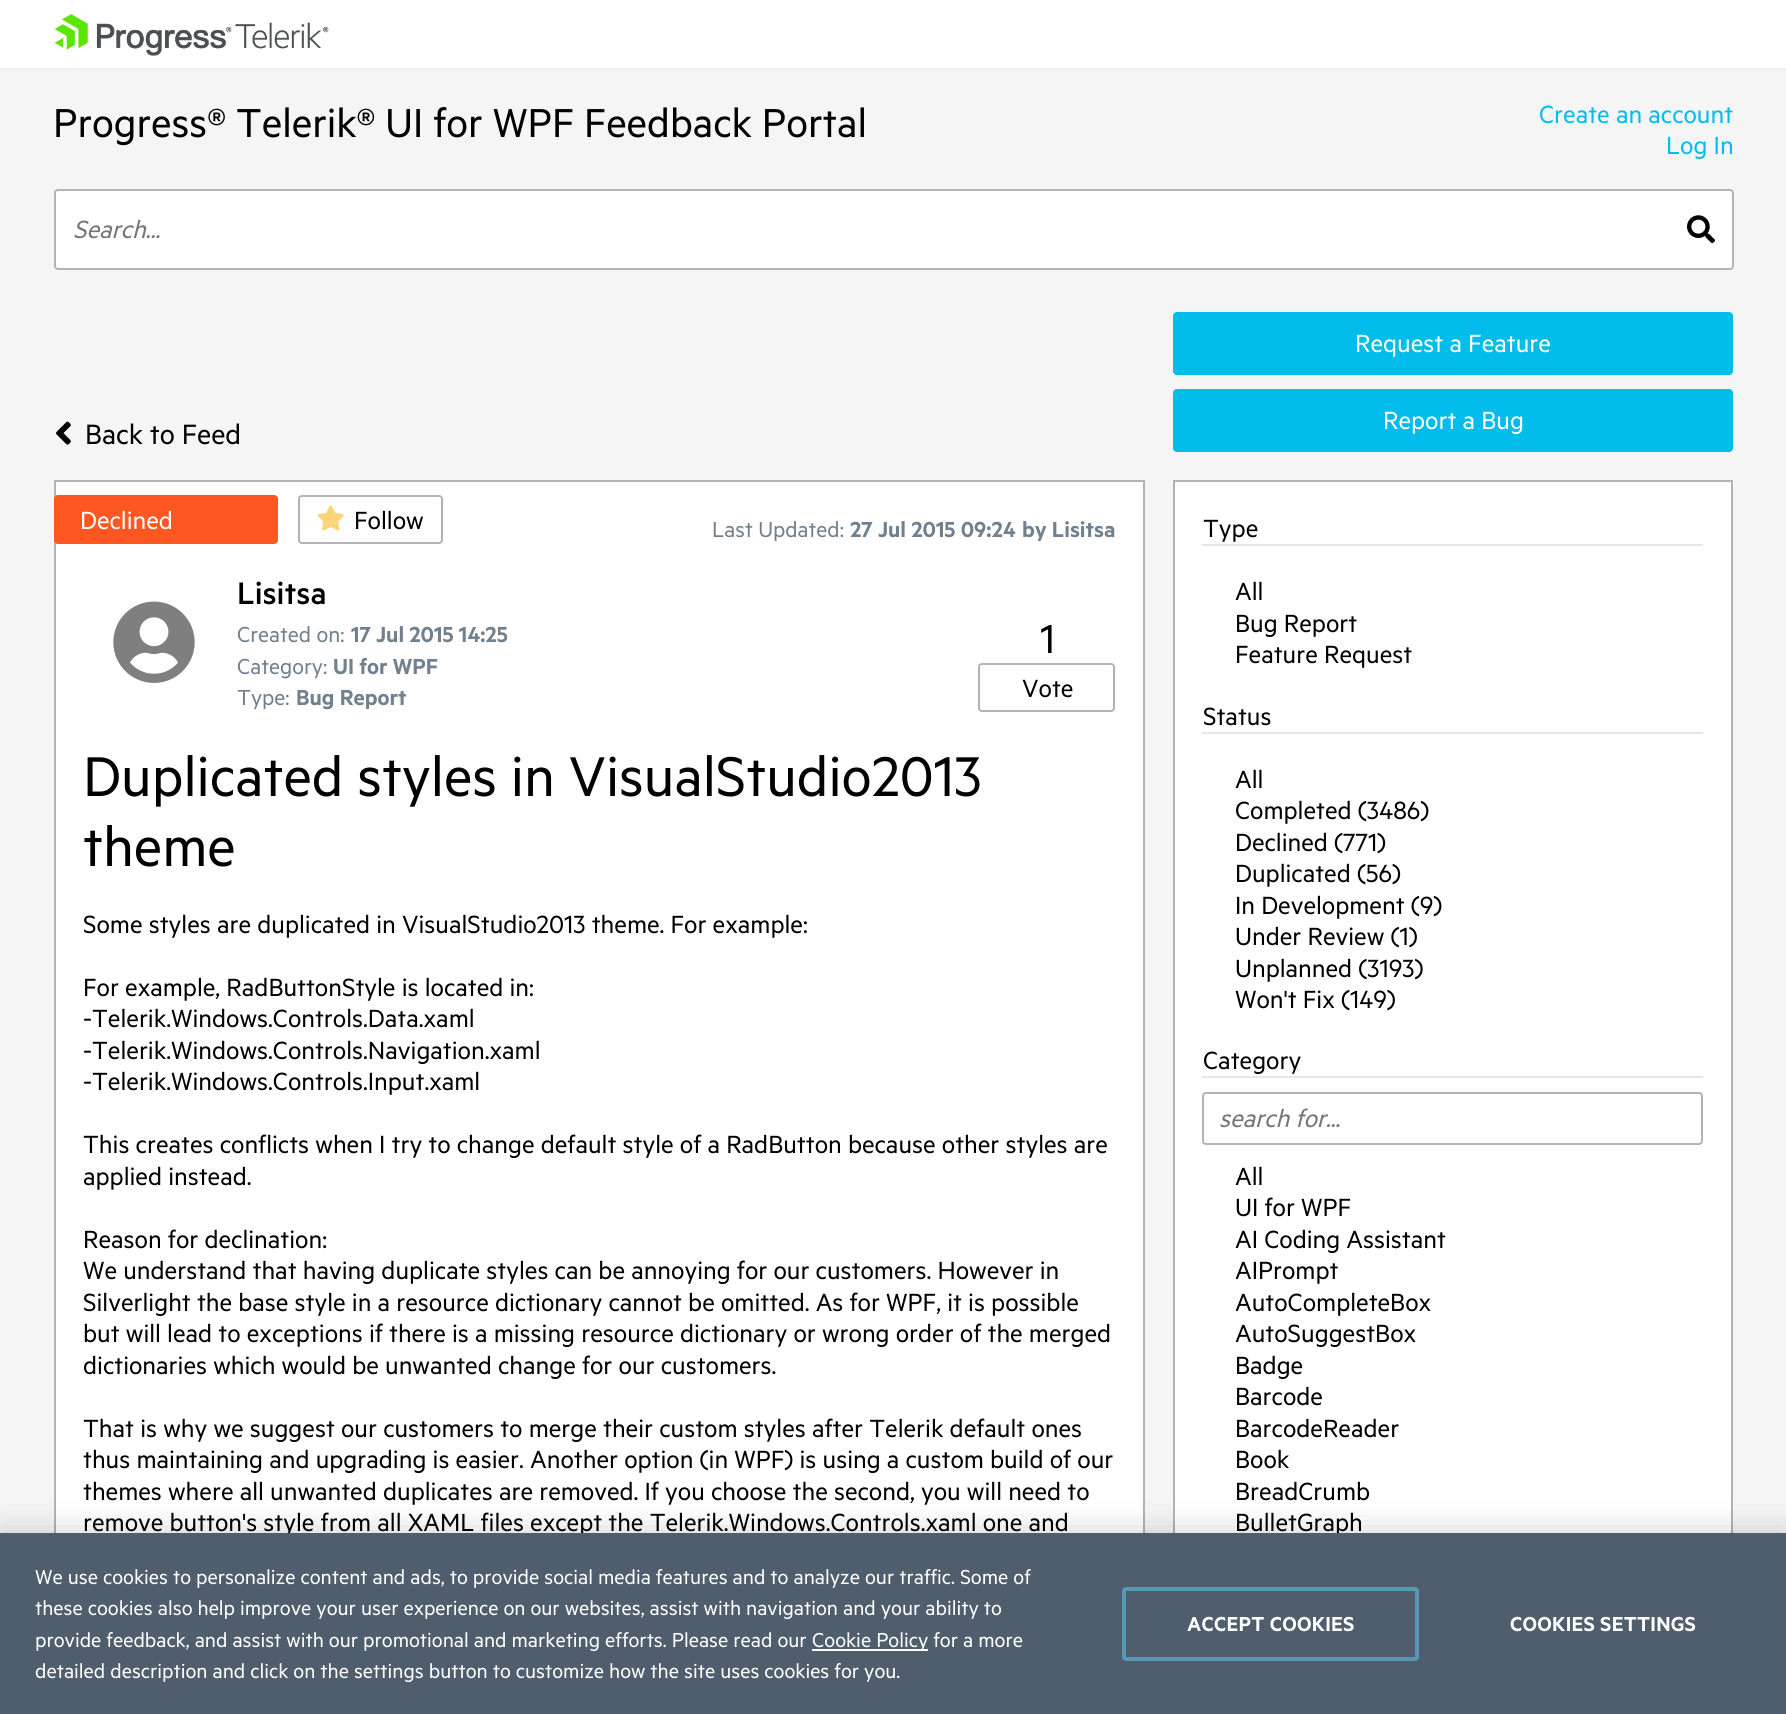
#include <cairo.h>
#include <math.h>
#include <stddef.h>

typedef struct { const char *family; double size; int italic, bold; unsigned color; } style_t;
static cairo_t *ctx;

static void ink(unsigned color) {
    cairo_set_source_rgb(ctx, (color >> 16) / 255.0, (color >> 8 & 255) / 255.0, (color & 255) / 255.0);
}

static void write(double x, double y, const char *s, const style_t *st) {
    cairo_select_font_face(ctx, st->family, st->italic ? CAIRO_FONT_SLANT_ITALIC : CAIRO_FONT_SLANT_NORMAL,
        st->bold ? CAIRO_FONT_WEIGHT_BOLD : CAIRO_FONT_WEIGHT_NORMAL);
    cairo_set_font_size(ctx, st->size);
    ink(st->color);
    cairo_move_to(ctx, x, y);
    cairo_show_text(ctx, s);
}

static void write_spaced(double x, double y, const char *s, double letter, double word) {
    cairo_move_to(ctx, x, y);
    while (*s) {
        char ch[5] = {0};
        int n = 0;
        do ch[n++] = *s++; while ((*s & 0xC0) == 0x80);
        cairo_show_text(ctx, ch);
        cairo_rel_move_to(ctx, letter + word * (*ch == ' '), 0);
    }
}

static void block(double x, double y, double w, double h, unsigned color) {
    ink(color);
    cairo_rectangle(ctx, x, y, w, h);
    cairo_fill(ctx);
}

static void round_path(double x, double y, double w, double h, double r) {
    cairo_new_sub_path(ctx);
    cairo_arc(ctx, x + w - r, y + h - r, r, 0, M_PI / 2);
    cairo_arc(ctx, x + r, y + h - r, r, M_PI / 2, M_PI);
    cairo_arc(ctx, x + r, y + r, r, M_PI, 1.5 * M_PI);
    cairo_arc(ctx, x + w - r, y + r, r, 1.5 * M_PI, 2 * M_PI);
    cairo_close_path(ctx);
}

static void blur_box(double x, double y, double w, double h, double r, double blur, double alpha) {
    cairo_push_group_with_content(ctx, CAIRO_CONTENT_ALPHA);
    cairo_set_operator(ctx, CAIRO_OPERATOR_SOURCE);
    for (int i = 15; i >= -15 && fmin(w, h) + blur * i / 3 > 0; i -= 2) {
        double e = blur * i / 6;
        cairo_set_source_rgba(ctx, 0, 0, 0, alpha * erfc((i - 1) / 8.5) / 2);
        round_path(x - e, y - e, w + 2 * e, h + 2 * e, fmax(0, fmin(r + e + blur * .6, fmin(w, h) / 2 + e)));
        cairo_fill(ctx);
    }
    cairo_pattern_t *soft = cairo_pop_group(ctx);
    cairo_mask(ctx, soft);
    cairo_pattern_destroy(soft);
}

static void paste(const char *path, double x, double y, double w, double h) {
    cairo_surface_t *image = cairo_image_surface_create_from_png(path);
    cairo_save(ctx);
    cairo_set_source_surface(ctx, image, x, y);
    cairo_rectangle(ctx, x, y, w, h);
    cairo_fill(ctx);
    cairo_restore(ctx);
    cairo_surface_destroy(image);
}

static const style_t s1 = {"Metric", 45.5, 0, 0, 0x000000};
static const style_t s2 = {"Metric", 28, 0, 0, 0x02bceb};
static const style_t s3 = {"Metric", 28, 1, 0, 0x757575};
static const style_t s4 = {"Metric", 31.5, 0, 0, 0x000000};
static const style_t s5 = {"Metric", 28, 0, 0, 0xffffff};
static const style_t s6 = {"Metric", 28, 0, 0, 0x000000};
static const style_t s7 = {"Metric", 24.5, 0, 0, 0x71808f};
static const style_t s8 = {"Metric SemiBold", 24.5, 0, 0, 0x71808f};
static const style_t s9 = {"Metric Medium", 35, 0, 0, 0x000000};
static const style_t s10 = {"Metric", 63, 0, 0, 0x000000};
static const style_t s11 = {"Metric", 22.75, 0, 0, 0xffffff};

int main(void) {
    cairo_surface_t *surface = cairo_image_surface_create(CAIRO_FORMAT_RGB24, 1786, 1714);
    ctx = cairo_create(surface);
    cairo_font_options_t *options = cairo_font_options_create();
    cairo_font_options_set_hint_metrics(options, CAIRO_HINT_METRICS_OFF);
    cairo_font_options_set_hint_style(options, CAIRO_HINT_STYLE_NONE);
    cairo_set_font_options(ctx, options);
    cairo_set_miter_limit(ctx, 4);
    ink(0xf5f5f5);
    cairo_paint(ctx);
    block(0, 0, 1786, 68, 0xffffff);
    block(0, 68, 1786, 2, 0xeff0f1);
    paste("pic1.png", 54, 14, 275, 42);
    write(53, 137, "Progress® Telerik® UI for WPF Feedback Portal", &s1);
    write(1539, 123, "Create an account", &s2);
    write(1666, 154, "Log In", &s2);
    ink(0xffffff);
    round_path(54, 189, 1680, 81, 4);
    cairo_fill(ctx);
    round_path(55, 190, 1678, 79, 3);
    cairo_set_source_rgba(ctx, 0, 0, 0, 0.3);
    cairo_stroke(ctx);
    write(73, 238, "Search...", &s3);
    paste("pic2.png", 1687, 215, 28, 28);
    paste("pic3.png", 56, 421, 15, 24);
    write(85, 444, "Back to Feed", &s4);
    ink(0x02bceb);
    round_path(1173, 312, 560, 63, 4);
    cairo_fill(ctx);
    write(1355, 352, "Request a Feature", &s5);
    ink(0x02bceb);
    round_path(1173, 389, 560, 63, 4);
    cairo_fill(ctx);
    write(1383, 429, "Report a Bug", &s5);
    block(56, 482, 1087, 1051, 0xffffff);
    cairo_rectangle(ctx, 55, 481, 1089, 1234);
    ink(0xb3b3b3);
    cairo_stroke(ctx);
    ink(0xff5722);
    round_path(54, 495, 224, 49, 4);
    cairo_fill(ctx);
    write(80, 529, "Declined", &s5);
    round_path(299, 496, 143, 47, 3);
    ink(0xb3b3b3);
    cairo_stroke(ctx);
    paste("pic4.png", 317, 505, 27, 26);
    write(354, 529, "Follow", &s6);
    write(712, 537, "Last Updated:", &s7);
    write(850, 537, "27 Jul 2015 09:24", &s8);
    write(1022, 537, "by Lisitsa", &s8);
    paste("pic5.png", 113, 601, 82, 82);
    write(237, 604, "Lisitsa", &s9);
    write(237, 642, "Created on:", &s7);
    write(351, 642, "17 Jul 2015 14:25", &s8);
    write(237, 674, "Category:", &s7);
    write(333, 674, "UI for WPF", &s8);
    write(237, 705, "Type:", &s7);
    write(296, 705, "Bug Report", &s8);
    write(1040, 653, "1", &s1);
    round_path(979, 664, 135, 47, 3);
    ink(0xb3b3b3);
    cairo_stroke(ctx);
    write(1022, 697, "Vote", &s6);
    write(83, 796, "Duplicated styles in VisualStudio2013", &s10);
    write(83, 866, "theme", &s10);
    write(83, 933, "Some styles are duplicated in VisualStudio2013 theme. For example:", &s6);
    write(83, 996, "For example, RadButtonStyle is located in:", &s6);
    write(83, 1027, "-Telerik.Windows.Controls.Data.xaml", &s6);
    write(83, 1059, "-Telerik.Windows.Controls.Navigation.xaml", &s6);
    write(83, 1090, "-Telerik.Windows.Controls.Input.xaml", &s6);
    write(83, 1153, "This creates conflicts when I try to change default style of a RadButton because other styles are", &s6);
    write(83, 1185, "applied instead.", &s6);
    write(83, 1248, "Reason for declination:", &s6);
    write(83, 1279, "We understand that having duplicate styles can be annoying for our customers. However in", &s6);
    write(83, 1311, "Silverlight the base style in a resource dictionary cannot be omitted. As for WPF, it is possible", &s6);
    write(83, 1342, "but will lead to exceptions if there is a missing resource dictionary or wrong order of the merged", &s6);
    write(83, 1374, "dictionaries which would be unwanted change for our customers.", &s6);
    write(83, 1437, "That is why we suggest our customers to merge their custom styles after Telerik default ones", &s6);
    write(83, 1468, "thus maintaining and upgrading is easier. Another option (in WPF) is using a custom build of our", &s6);
    write(83, 1500, "themes where all unwanted duplicates are removed. If you choose the second, you will need to", &s6);
    write(83, 1531, "remove button's style from all XAML files except the Telerik.Windows.Controls.xaml one and", &s6);
    block(1175, 482, 556, 1051, 0xffffff);
    cairo_rectangle(ctx, 1174, 481, 558, 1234);
    ink(0xb3b3b3);
    cairo_stroke(ctx);
    block(1202, 544, 501, 2, 0xe6e6e6);
    write(1203, 537, "Type", &s6);
    write(1235, 600, "All", &s6);
    write(1235, 632, "Bug Report", &s6);
    write(1235, 663, "Feature Request", &s6);
    block(1202, 732, 501, 2, 0xe6e6e6);
    write(1203, 725, "Status", &s6);
    write(1235, 788, "All", &s6);
    write(1235, 819, "Completed (3486)", &s6);
    write(1235, 851, "Declined (771)", &s6);
    write(1235, 882, "Duplicated (56)", &s6);
    write(1235, 914, "In Development (9)", &s6);
    write(1235, 945, "Under Review (1)", &s6);
    write(1235, 977, "Unplanned (3193)", &s6);
    write(1235, 1008, "Won't Fix (149)", &s6);
    block(1202, 1076, 501, 2, 0xe6e6e6);
    write(1203, 1069, "Category", &s6);
    round_path(1203, 1093, 499, 51, 3);
    ink(0xb3b3b3);
    cairo_stroke(ctx);
    write(1219, 1127, "search for...", &s3);
    write(1235, 1185, "All", &s6);
    write(1235, 1216, "UI for WPF", &s6);
    write(1235, 1248, "AI Coding Assistant", &s6);
    write(1235, 1279, "AIPrompt", &s6);
    write(1235, 1311, "AutoCompleteBox", &s6);
    write(1235, 1342, "AutoSuggestBox", &s6);
    write(1235, 1374, "Badge", &s6);
    write(1235, 1405, "Barcode", &s6);
    write(1235, 1437, "BarcodeReader", &s6);
    write(1235, 1468, "Book", &s6);
    write(1235, 1500, "BreadCrumb", &s6);
    write(1235, 1531, "BulletGraph", &s6);
    ink(0x000000);
    blur_box(0, 1533, 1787, 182, 0, 16, 0.2);
    block(0, 1533, 1786, 181, 0x4f5d6c);
    write(35, 1584, "We use cookies to personalize content and ads, to provide social media features and to analyze our traffic. Some of", &s11);
    write(35, 1615, "these cookies also help improve your user experience on our websites, assist with navigation and your ability to", &s11);
    write(35, 1647, "provide feedback, and assist with our promotional and marketing efforts. Please read our", &s11);
    block(812, 1649, 116, 2, 0xffffff);
    write(812, 1647, "Cookie Policy for a more", &s11);
    write(35, 1678, "detailed description and click on the settings button to customize how the site uses cookies for you.", &s11);
    round_path(1124, 1589, 293, 70, 2);
    ink(0x5699b6);
    cairo_set_line_width(ctx, 4);
    cairo_stroke(ctx);
    cairo_select_font_face(ctx, "Metric SemiBold", CAIRO_FONT_SLANT_NORMAL, CAIRO_FONT_WEIGHT_NORMAL);
    ink(0xffffff);
    write_spaced(1187, 1631, "ACCEPT COOKIES", 0.25, 0);
    write_spaced(1510, 1631, "COOKIES SETTINGS", 0.25, 0);
    cairo_surface_write_to_png(surface, "screenshot.png");
    cairo_font_options_destroy(options);
    cairo_destroy(ctx);
    cairo_surface_destroy(surface);
    return 0;
}
